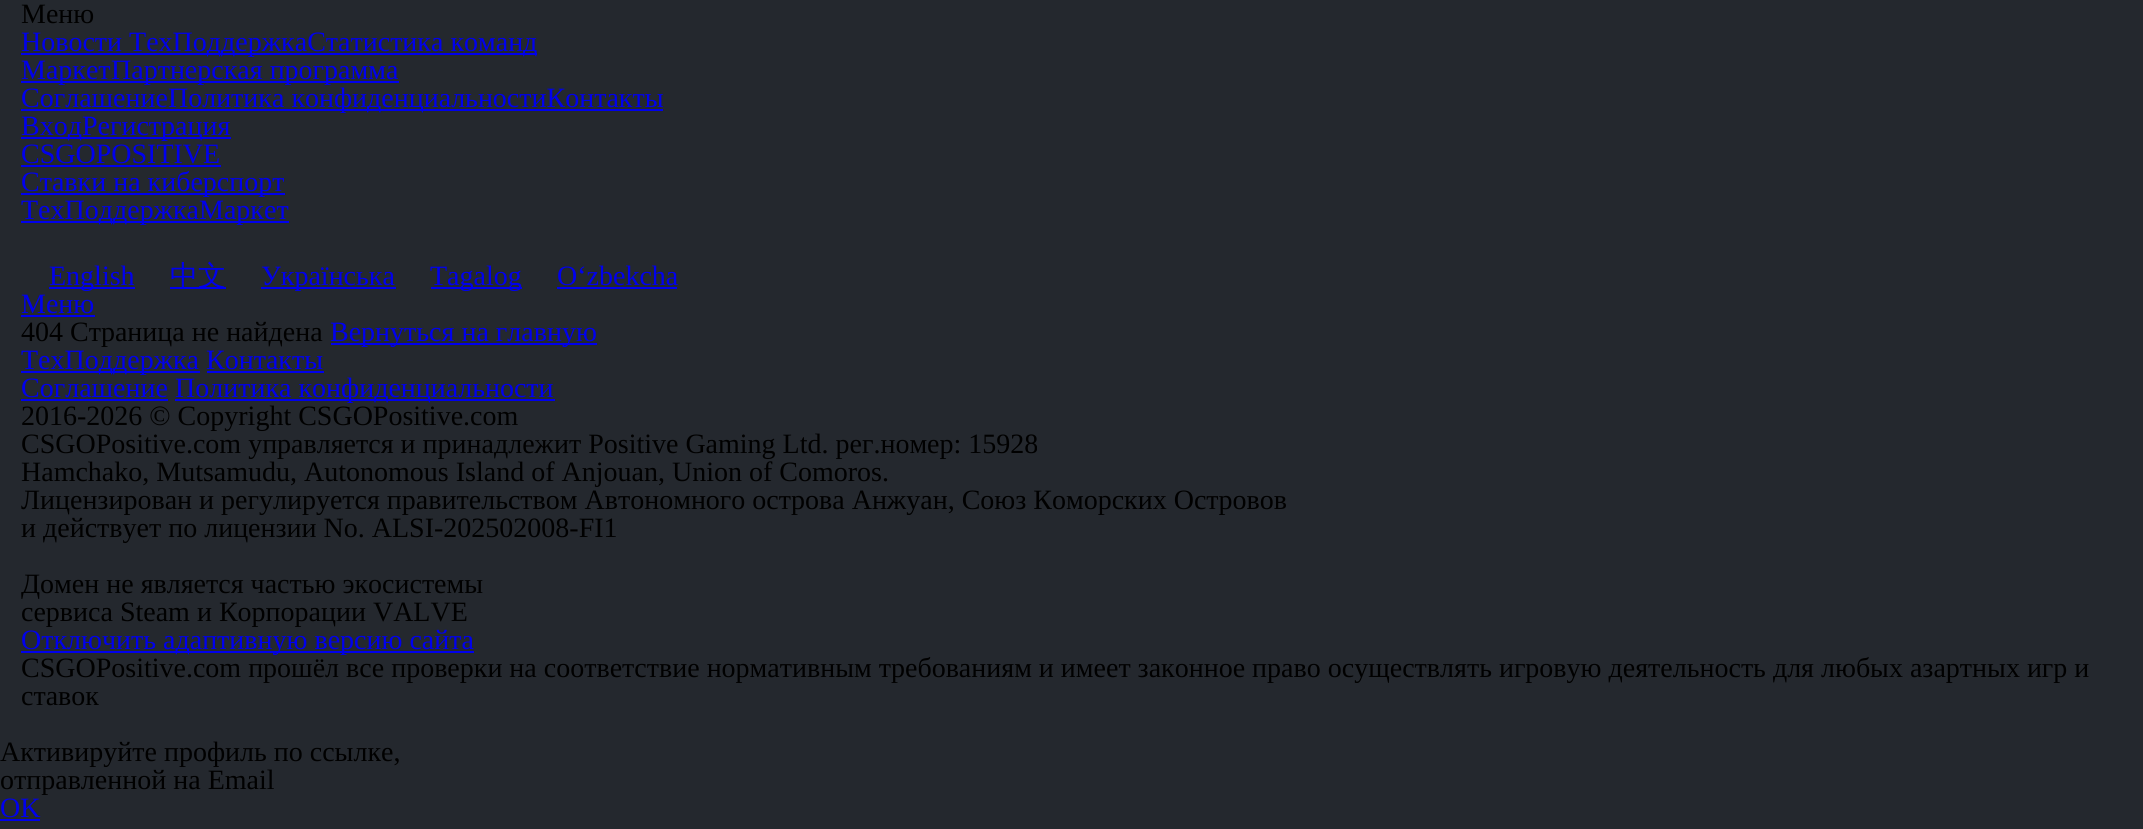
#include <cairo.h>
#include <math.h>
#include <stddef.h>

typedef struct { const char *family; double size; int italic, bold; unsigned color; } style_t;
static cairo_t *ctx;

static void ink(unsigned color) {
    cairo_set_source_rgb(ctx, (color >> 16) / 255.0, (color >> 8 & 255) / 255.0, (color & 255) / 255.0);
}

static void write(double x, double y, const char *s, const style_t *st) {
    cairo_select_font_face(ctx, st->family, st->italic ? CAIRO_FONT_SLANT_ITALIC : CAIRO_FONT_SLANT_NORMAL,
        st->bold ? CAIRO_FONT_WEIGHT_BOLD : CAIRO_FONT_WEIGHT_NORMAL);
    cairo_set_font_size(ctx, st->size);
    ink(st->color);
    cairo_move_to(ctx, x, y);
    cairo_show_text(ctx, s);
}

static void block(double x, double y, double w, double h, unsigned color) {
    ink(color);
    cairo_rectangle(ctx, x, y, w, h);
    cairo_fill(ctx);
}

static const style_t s1 = {"Liberation Serif", 28, 0, 0, 0x000000};
static const style_t s2 = {"Liberation Serif", 28, 0, 0, 0x0000ee};
static const style_t s3 = {"WenQuanYi Zen Hei Medium", 28, 0, 0, 0x0000ee};

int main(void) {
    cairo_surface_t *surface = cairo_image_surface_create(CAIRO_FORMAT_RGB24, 2143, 829);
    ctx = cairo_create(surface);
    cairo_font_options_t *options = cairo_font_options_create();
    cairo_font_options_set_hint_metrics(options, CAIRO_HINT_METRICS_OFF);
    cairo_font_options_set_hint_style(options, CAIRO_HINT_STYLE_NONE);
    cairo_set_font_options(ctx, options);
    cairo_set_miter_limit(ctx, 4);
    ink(0x24282e);
    cairo_paint(ctx);
    write(21, 23, "Меню", &s1);
    block(21, 53, 516, 2, 0x0000ee);
    write(21, 51, "Новости ТехПоддержкаСтатистика команд", &s2);
    block(21, 81, 89, 2, 0x0000ee);
    write(21, 79, "Маркет", &s2);
    block(110, 81, 289, 2, 0x0000ee);
    write(111, 79, "Партнерская программа", &s2);
    block(21, 109, 642, 2, 0x0000ee);
    write(21, 107, "СоглашениеПолитика конфиденциальностиКонтакты", &s2);
    block(21, 137, 210, 2, 0x0000ee);
    write(21, 135, "ВходРегистрация", &s2);
    write(21, 163, "CSGOPOSITIVE", &s2);
    block(21, 165, 200, 2, 0x0000ee);
    block(21, 193, 264, 2, 0x0000ee);
    write(21, 191, "Ставки на киберспорт", &s2);
    block(21, 221, 268, 2, 0x0000ee);
    write(21, 219, "ТехПоддержкаМаркет", &s2);
    block(49, 287, 86, 2, 0x0000ee);
    write(49, 285, "English", &s2);
    block(170, 287, 56, 2, 0x0000ee);
    write(170, 285, "中文", &s3);
    block(261, 287, 135, 2, 0x0000ee);
    write(261, 285, "Українська", &s2);
    block(431, 287, 91, 2, 0x0000ee);
    write(430, 285, "Tagalog", &s2);
    write(557, 285, "Oʻzbekcha", &s2);
    block(557, 287, 120, 2, 0x0000ee);
    write(21, 313, "Меню", &s2);
    block(21, 315, 74, 2, 0x0000ee);
    write(21, 341, "404 Страница не найдена", &s1);
    block(331, 343, 266, 2, 0x0000ee);
    write(330, 341, "Вернуться на главную", &s2);
    block(21, 371, 179, 2, 0x0000ee);
    write(21, 369, "ТехПоддержка Контакты", &s2);
    block(207, 371, 117, 2, 0x0000ee);
    write(21, 397, "Соглашение", &s2);
    block(21, 399, 147, 2, 0x0000ee);
    block(175, 399, 380, 2, 0x0000ee);
    write(175, 397, "Политика конфиденциальности", &s2);
    write(21, 425, "2016-2026 © Copyright CSGOPositive.com", &s1);
    write(21, 453, "CSGOPositive.com управляется и принадлежит Positive Gaming Ltd. рег.номер: 15928", &s1);
    write(21, 481, "Hamchako, Mutsamudu, Autonomous Island of Anjouan, Union of Comoros.", &s1);
    write(21, 509, "Лицензирован и регулируется правительством Автономного острова Анжуан, Союз Коморских Островов", &s1);
    write(21, 537, "и действует по лицензии No. ALSI-202502008-FI1", &s1);
    write(21, 593, "Домен не является частью экосистемы", &s1);
    write(21, 621, "сервиса Steam и Корпорации VALVE", &s1);
    block(21, 651, 453, 2, 0x0000ee);
    write(21, 649, "Отключить адаптивную версию сайта", &s2);
    write(21, 677, "CSGOPositive.com прошёл все проверки на соответствие нормативным требованиям и имеет законное право осуществлять игровую деятельность для любых азартных игр и", &s1);
    write(21, 705, "ставок", &s1);
    write(0, 761, "Активируйте профиль по ссылке,", &s1);
    write(0, 789, "отправленной на Email", &s1);
    write(0, 817, "OK", &s2);
    block(0, 819, 40, 2, 0x0000ee);
    cairo_surface_write_to_png(surface, "screenshot.png");
    cairo_font_options_destroy(options);
    cairo_destroy(ctx);
    cairo_surface_destroy(surface);
    return 0;
}
